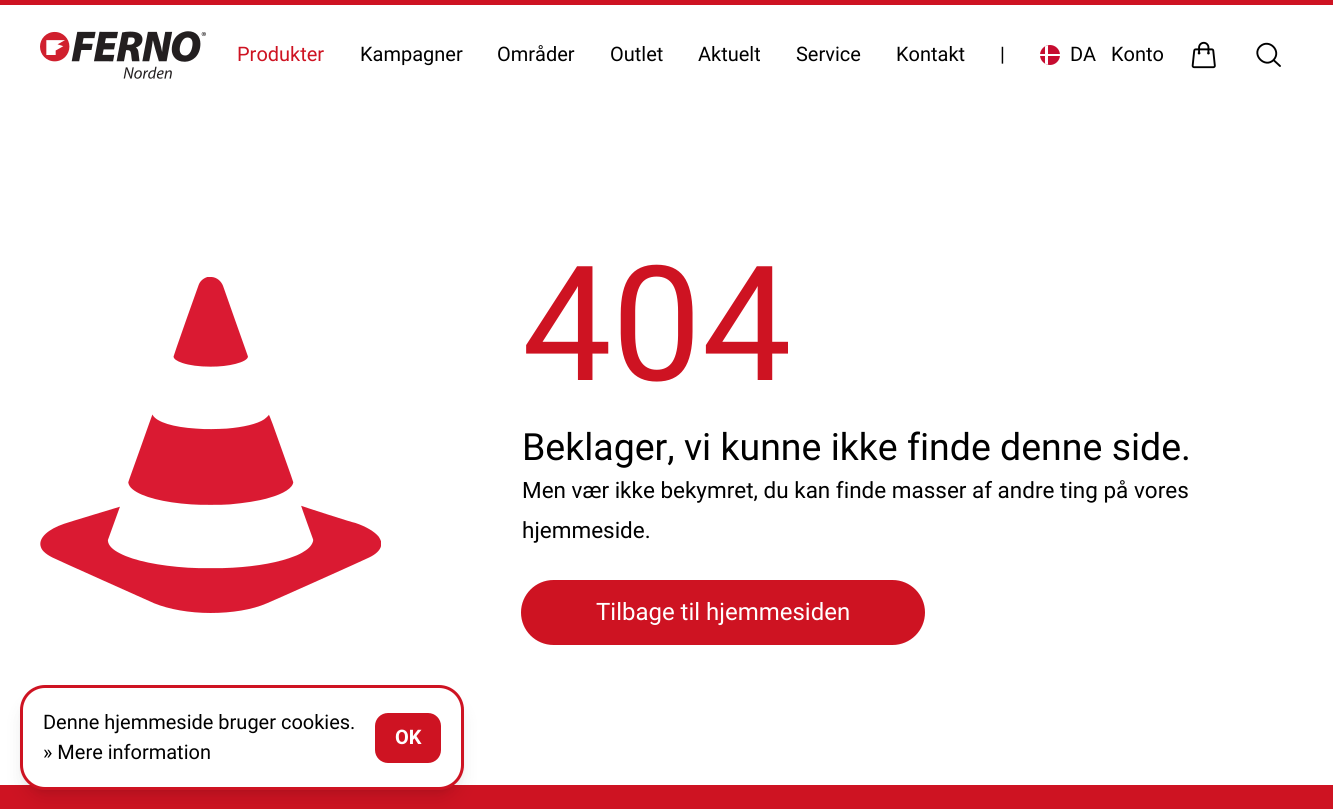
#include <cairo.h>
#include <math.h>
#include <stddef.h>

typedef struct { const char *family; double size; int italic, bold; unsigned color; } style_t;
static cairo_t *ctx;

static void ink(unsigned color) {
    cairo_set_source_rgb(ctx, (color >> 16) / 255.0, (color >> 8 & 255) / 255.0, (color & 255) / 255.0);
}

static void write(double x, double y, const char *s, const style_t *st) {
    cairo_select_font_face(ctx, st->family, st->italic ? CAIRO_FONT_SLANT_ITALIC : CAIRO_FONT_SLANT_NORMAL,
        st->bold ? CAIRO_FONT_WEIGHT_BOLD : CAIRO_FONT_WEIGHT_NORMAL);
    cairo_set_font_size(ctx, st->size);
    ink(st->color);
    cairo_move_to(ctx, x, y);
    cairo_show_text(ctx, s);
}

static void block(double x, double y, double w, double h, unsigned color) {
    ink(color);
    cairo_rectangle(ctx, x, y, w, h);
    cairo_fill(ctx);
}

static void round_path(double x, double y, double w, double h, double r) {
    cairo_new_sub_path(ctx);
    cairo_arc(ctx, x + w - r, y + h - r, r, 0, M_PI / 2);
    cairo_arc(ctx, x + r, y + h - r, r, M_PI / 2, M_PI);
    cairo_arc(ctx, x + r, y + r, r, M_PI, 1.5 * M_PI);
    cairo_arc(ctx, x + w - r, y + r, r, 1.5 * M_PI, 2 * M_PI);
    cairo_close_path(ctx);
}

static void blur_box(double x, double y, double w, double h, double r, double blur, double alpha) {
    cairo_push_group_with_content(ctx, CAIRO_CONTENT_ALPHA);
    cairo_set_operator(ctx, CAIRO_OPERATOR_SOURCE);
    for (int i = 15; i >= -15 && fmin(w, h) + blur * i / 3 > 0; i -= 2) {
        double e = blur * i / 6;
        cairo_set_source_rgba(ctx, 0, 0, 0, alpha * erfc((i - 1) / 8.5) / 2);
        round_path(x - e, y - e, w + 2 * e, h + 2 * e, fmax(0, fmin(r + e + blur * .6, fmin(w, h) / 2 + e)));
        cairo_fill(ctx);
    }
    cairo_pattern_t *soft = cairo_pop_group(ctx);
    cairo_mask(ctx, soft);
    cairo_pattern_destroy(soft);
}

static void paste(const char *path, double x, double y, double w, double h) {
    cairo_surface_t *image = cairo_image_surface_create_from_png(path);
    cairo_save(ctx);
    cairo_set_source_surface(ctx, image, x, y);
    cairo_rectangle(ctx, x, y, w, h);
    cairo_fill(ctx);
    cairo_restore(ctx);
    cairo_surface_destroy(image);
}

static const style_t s1 = {"Roboto", 20, 0, 0, 0xce1322};
static const style_t s2 = {"Roboto", 20, 0, 0, 0x000000};
static const style_t s3 = {"Roboto", 160, 0, 0, 0xce1322};
static const style_t s4 = {"Roboto", 37.5, 0, 0, 0x000000};
static const style_t s5 = {"Roboto", 22.5, 0, 0, 0x000000};
static const style_t s6 = {"Roboto", 24, 0, 0, 0xffffff};
static const style_t s7 = {"Roboto", 20, 0, 1, 0xffffff};

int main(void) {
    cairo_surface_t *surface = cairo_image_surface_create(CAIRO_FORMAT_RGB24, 1333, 809);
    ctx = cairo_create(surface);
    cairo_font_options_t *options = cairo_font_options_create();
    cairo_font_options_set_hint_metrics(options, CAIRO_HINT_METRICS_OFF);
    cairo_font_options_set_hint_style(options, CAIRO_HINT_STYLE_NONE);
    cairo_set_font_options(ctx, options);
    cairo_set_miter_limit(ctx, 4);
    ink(0xffffff);
    cairo_paint(ctx);
    block(0, 0, 1333, 5, 0xce1322);
    paste("pic1.png", 40, 31, 166, 48);
    write(237, 61, "Produkter", &s1);
    write(360, 61, "Kampagner", &s2);
    write(497, 61, "Områder", &s2);
    write(610, 61, "Outlet", &s2);
    write(698, 61, "Aktuelt", &s2);
    write(796, 61, "Service", &s2);
    write(896, 61, "Kontakt", &s2);
    write(1000, 61, "|", &s2);
    ink(0xc60c30);
    cairo_new_path(ctx);
    cairo_arc(ctx, 1050, 55, 10, 0, 2 * M_PI);
    cairo_fill(ctx);
    cairo_save(ctx);
    round_path(1040, 45, 20, 20, 10);
    cairo_clip(ctx);
    block(1045, 45, 3, 20, 0xffffff);
    cairo_restore(ctx);
    block(1040, 54, 20, 2, 0xffffff);
    write(1070, 61, "DA", &s2);
    write(1111, 61, "Konto", &s2);
    paste("pic2.png", 1191, 41, 25, 28);
    cairo_new_path(ctx);
    cairo_move_to(ctx, 1280, 66);
    cairo_line_to(ctx, 1273.5, 60);
    cairo_move_to(ctx, 1273.5, 60);
    cairo_curve_to(ctx, 1282, 51, 1269, 38, 1260, 46.5);
    cairo_curve_to(ctx, 1251.5, 55, 1265, 68.5, 1273.5, 60);
    cairo_close_path(ctx);
    cairo_set_line_width(ctx, 1.9);
    cairo_set_line_cap(ctx, CAIRO_LINE_CAP_ROUND);
    cairo_set_line_join(ctx, CAIRO_LINE_JOIN_ROUND);
    cairo_stroke(ctx);
    paste("pic3.png", 40, 277, 341, 336);
    write(522, 380, "404", &s3);
    write(522, 460, "Beklager, vi kunne ikke finde denne side.", &s4);
    write(522, 498, "Men vær ikke bekymret, du kan finde masser af andre ting på vores", &s5);
    write(522, 538, "hjemmeside.", &s5);
    ink(0xce1322);
    round_path(522.5, 581.5, 401, 62, 31);
    cairo_fill_preserve(ctx);
    cairo_set_line_width(ctx, 3);
    cairo_set_line_cap(ctx, CAIRO_LINE_CAP_BUTT);
    cairo_set_line_join(ctx, CAIRO_LINE_JOIN_MITER);
    cairo_stroke(ctx);
    write(596, 620, "Tilbage til hjemmesiden", &s6);
    block(0, 785, 1333, 24, 0xce1322);
    ink(0x000000);
    blur_box(25, 695, 434, 95, 20, 4, 0.1);
    blur_box(24, 701, 436, 98, 21, 9.5, 0.1);
    ink(0xffffff);
    round_path(21.5, 686.5, 441, 102, 23.5);
    cairo_fill_preserve(ctx);
    ink(0xce1322);
    cairo_stroke(ctx);
    write(43, 729, "Denne hjemmeside bruger cookies.", &s2);
    write(43, 759, "» Mere information", &s2);
    ink(0xce1322);
    round_path(375, 713, 66, 50, 13);
    cairo_fill(ctx);
    write(395, 744, "OK", &s7);
    cairo_surface_write_to_png(surface, "screenshot.png");
    cairo_font_options_destroy(options);
    cairo_destroy(ctx);
    cairo_surface_destroy(surface);
    return 0;
}
